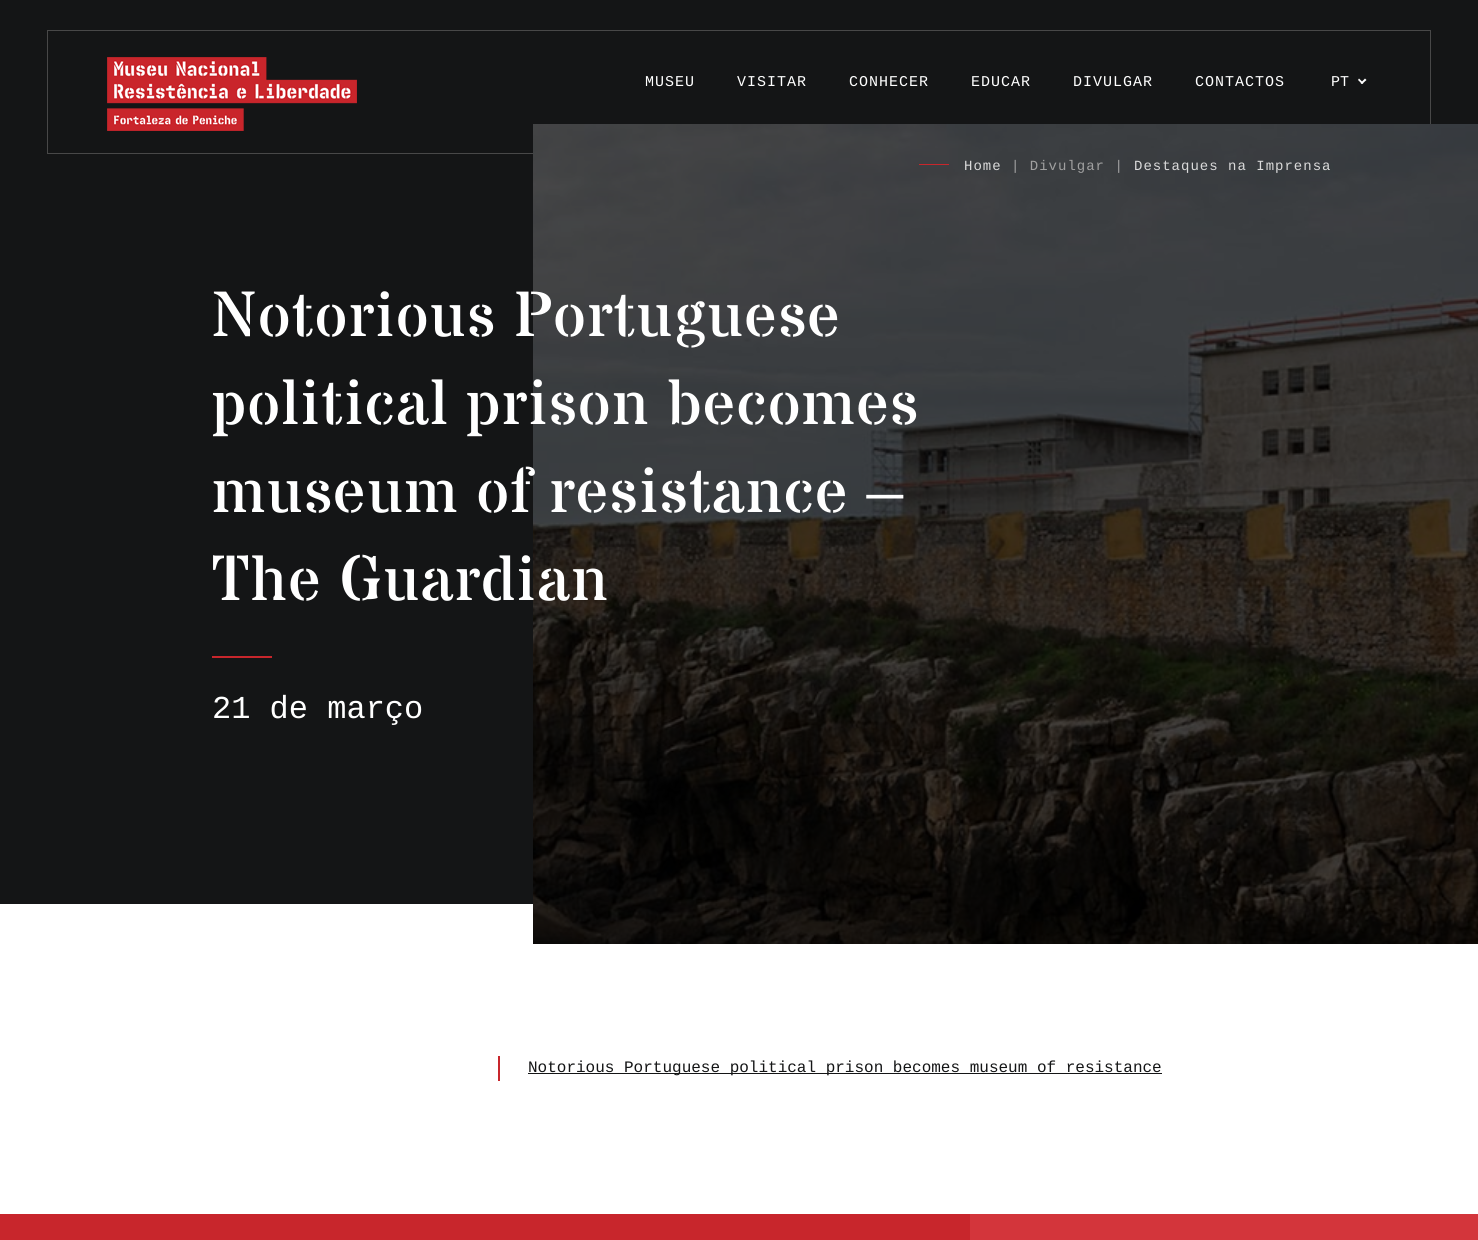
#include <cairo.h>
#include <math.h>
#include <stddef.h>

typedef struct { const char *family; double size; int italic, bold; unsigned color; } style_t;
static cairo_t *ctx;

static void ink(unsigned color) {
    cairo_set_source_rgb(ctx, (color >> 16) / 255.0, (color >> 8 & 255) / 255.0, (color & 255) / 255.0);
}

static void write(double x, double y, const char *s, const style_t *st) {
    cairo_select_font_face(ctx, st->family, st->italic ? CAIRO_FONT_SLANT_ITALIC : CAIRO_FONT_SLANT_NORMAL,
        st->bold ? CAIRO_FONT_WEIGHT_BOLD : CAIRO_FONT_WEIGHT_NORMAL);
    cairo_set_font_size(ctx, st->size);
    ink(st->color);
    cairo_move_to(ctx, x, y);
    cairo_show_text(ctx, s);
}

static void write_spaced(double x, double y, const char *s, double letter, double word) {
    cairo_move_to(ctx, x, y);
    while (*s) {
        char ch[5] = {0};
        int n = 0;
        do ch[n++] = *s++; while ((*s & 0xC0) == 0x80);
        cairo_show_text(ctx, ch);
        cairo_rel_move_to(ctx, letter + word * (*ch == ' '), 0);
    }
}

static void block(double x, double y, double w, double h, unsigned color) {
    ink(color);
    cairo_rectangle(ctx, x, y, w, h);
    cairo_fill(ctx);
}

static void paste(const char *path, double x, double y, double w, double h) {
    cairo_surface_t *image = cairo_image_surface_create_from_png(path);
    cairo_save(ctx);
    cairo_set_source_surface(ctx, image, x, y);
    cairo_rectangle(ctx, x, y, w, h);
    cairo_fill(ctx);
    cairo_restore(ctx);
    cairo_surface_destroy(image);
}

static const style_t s1 = {"Liberation Mono", 15, 0, 0, 0xffffff};
static const style_t s2 = {"Liberation Mono", 32, 0, 0, 0xffffff};
static const style_t s3 = {"Liberation Mono", 16, 0, 0, 0x141516};

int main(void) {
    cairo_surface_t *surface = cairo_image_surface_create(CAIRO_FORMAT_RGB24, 1478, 1240);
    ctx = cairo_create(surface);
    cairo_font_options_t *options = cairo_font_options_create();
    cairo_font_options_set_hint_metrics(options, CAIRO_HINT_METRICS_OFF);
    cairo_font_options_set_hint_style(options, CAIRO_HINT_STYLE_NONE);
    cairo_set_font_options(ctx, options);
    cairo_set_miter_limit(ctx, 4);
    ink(0xffffff);
    cairo_paint(ctx);
    block(0, 0, 1478, 154, 0x141516);
    cairo_rectangle(ctx, 47.5, 30.5, 1383, 123);
    ink(0x484848);
    cairo_set_line_width(ctx, 1);
    cairo_stroke(ctx);
    paste("pic1.png", 107, 57, 250, 74);
    cairo_select_font_face(ctx, "Liberation Mono", CAIRO_FONT_SLANT_NORMAL, CAIRO_FONT_WEIGHT_NORMAL);
    cairo_set_font_size(ctx, 15);
    ink(0xffffff);
    write_spaced(645, 86, "MUSEU", 1, 0);
    write_spaced(737, 86, "VISITAR", 1, 0);
    write_spaced(849, 86, "CONHECER", 1, 0);
    write_spaced(971, 86, "EDUCAR", 1, 0);
    write_spaced(1073, 86, "DIVULGAR", 1, 0);
    write_spaced(1195, 86, "CONTACTOS", 1, 0);
    write(1331, 86, "PT", &s1);
    cairo_new_path(ctx);
    cairo_move_to(ctx, 1365, 78.5);
    cairo_line_to(ctx, 1366.5, 80);
    cairo_line_to(ctx, 1362, 84);
    cairo_line_to(ctx, 1360.5, 83);
    cairo_close_path(ctx);
    cairo_fill(ctx);
    cairo_new_path(ctx);
    cairo_move_to(ctx, 1359, 78.5);
    cairo_line_to(ctx, 1363.5, 83);
    cairo_line_to(ctx, 1362, 84);
    cairo_line_to(ctx, 1358, 80);
    cairo_close_path(ctx);
    cairo_fill(ctx);
    block(0, 154, 533, 750, 0x141516);
    paste("pic2.png", 533, 124, 945, 820);
    block(919, 164, 30, 1, 0xc8262c);
    cairo_set_font_size(ctx, 14);
    ink(0xdadada);
    write_spaced(964, 170, "Home", 1, 0);
    ink(0xa0a0a0);
    write_spaced(1011, 170, "| Divulgar |", 1, 0);
    ink(0xdadada);
    write_spaced(1134, 170, "Destaques na Imprensa", 1, 0);
    cairo_select_font_face(ctx, "Stardos Stencil", CAIRO_FONT_SLANT_NORMAL, CAIRO_FONT_WEIGHT_NORMAL);
    cairo_set_font_size(ctx, 64);
    ink(0xffffff);
    write_spaced(212, 336, "Notorious Portuguese", 1, 0);
    write_spaced(212, 424, "political prison becomes", 1, 0);
    write_spaced(212, 512, "museum of resistance –", 1, 0);
    write_spaced(212, 600, "The Guardian", 1, 0);
    block(212, 656, 60, 2, 0xc8262c);
    write(212, 718, "21 de março", &s2);
    block(498, 1056, 2, 25, 0xc8262c);
    block(528, 1073, 634, 1, 0x141516);
    write(528, 1072, "Notorious Portuguese political prison becomes museum of resistance", &s3);
    block(0, 1214, 970, 26, 0xc8262c);
    block(970, 1214, 508, 26, 0xd3353b);
    cairo_surface_write_to_png(surface, "screenshot.png");
    cairo_font_options_destroy(options);
    cairo_destroy(ctx);
    cairo_surface_destroy(surface);
    return 0;
}
